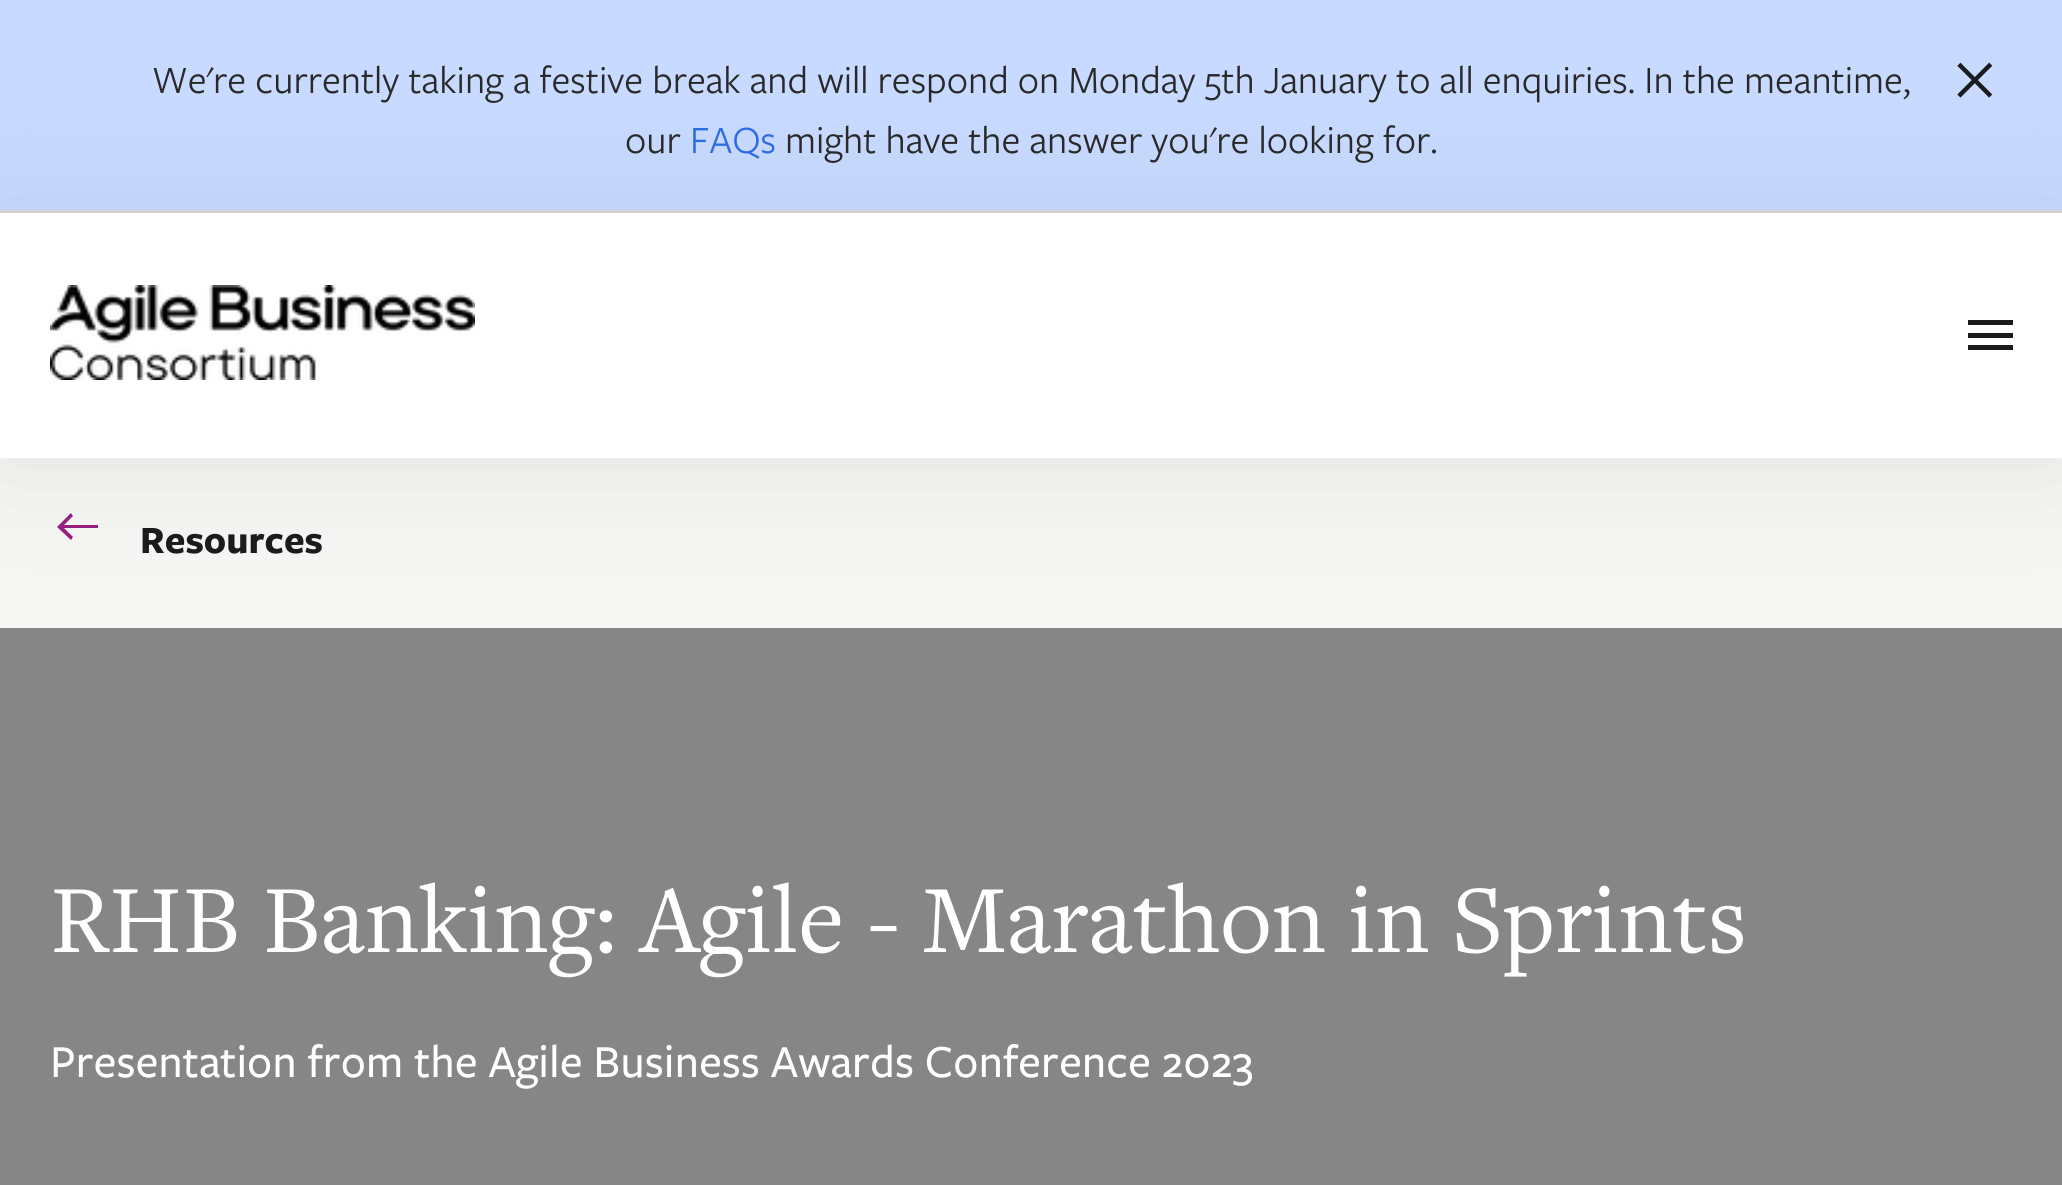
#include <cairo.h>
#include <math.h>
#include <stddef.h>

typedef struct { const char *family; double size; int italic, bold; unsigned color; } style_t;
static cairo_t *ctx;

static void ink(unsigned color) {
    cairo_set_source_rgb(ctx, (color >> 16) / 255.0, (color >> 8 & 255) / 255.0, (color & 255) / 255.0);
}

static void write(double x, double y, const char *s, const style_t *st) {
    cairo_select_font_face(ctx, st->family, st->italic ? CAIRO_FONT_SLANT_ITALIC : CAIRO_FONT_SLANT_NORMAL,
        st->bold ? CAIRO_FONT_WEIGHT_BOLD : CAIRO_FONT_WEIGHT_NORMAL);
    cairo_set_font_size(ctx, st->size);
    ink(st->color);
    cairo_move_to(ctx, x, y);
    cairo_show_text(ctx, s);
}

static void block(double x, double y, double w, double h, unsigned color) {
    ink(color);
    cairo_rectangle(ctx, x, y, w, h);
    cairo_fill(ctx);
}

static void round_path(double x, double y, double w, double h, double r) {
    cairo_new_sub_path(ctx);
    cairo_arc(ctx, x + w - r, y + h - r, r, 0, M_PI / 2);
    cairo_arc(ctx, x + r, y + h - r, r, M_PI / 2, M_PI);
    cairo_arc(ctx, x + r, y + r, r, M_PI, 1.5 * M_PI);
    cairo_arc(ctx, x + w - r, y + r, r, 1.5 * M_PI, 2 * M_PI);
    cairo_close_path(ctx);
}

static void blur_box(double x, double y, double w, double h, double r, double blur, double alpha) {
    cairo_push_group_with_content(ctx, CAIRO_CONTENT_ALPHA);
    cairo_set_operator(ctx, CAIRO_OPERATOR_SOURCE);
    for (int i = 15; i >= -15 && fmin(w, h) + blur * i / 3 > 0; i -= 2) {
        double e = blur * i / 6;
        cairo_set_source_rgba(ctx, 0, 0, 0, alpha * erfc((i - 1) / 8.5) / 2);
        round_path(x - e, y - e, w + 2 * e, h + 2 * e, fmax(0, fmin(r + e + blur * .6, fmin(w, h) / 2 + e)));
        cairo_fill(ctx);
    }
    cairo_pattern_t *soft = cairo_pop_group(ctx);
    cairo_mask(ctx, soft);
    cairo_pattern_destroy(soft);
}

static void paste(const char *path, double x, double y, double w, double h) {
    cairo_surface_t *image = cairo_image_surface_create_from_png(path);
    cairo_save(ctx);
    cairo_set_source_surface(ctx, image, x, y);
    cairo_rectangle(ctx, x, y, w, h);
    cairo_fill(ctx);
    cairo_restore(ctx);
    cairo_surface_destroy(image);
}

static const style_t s1 = {"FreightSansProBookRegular", 40, 0, 0, 0x292929};
static const style_t s2 = {"FreightSansProBookRegular", 40, 0, 0, 0x2d6be5};
static const style_t s3 = {"FreightSansProBookRegular", 85, 0, 0, 0x191b1d};
static const style_t s4 = {"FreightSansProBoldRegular", 40, 0, 1, 0x191b1d};
static const style_t s5 = {"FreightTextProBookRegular", 100, 0, 0, 0xffffff};
static const style_t s6 = {"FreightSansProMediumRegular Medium", 47.5, 0, 0, 0xffffff};

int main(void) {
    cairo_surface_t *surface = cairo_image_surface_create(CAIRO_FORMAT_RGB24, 2062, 1185);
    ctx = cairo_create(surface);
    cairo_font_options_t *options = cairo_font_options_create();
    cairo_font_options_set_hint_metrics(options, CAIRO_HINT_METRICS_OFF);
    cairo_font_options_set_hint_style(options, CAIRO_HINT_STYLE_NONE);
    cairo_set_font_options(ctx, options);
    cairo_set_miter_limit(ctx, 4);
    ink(0xf6f7f5);
    cairo_paint(ctx);
    block(0, 0, 2062, 210, 0xc8daff);
    block(0, 210, 2062, 3, 0xd9d9d9);
    ink(0x972082);
    cairo_new_path(ctx);
    cairo_move_to(ctx, 64, 528);
    cairo_line_to(ctx, 73, 537);
    cairo_line_to(ctx, 71, 540);
    cairo_line_to(ctx, 57, 527);
    cairo_line_to(ctx, 71, 513);
    cairo_line_to(ctx, 73, 516);
    cairo_line_to(ctx, 64, 525);
    cairo_line_to(ctx, 98, 525);
    cairo_line_to(ctx, 98, 528);
    cairo_close_path(ctx);
    cairo_fill(ctx);
    block(0, 628, 2062, 557, 0x868686);
    ink(0x000000);
    blur_box(0, 223, 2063, 237, 0, 62.5, 0.09);
    block(0, 213, 2062, 245, 0xffffff);
    paste("pic1.png", 50, 285, 425, 95);
    block(1968, 333, 45, 5, 0x191b1d);
    block(1968, 320, 45, 5, 0x191b1d);
    block(1968, 345, 45, 5, 0x191b1d);
    write(152, 93, "We're currently taking a festive break and will respond on Monday 5th January to all enquiries. In the meantime,", &s1);
    write(625, 153, "our", &s1);
    write(690, 153, "FAQs", &s2);
    write(785, 153, "might have the answer you're looking for.", &s1);
    write(1954, 100, "×", &s3);
    write(140, 553, "Resources", &s4);
    write(50, 952, "RHB Banking: Agile - Marathon in Sprints", &s5);
    write(50, 1077, "Presentation from the Agile Business Awards Conference 2023", &s6);
    cairo_surface_write_to_png(surface, "screenshot.png");
    cairo_font_options_destroy(options);
    cairo_destroy(ctx);
    cairo_surface_destroy(surface);
    return 0;
}
